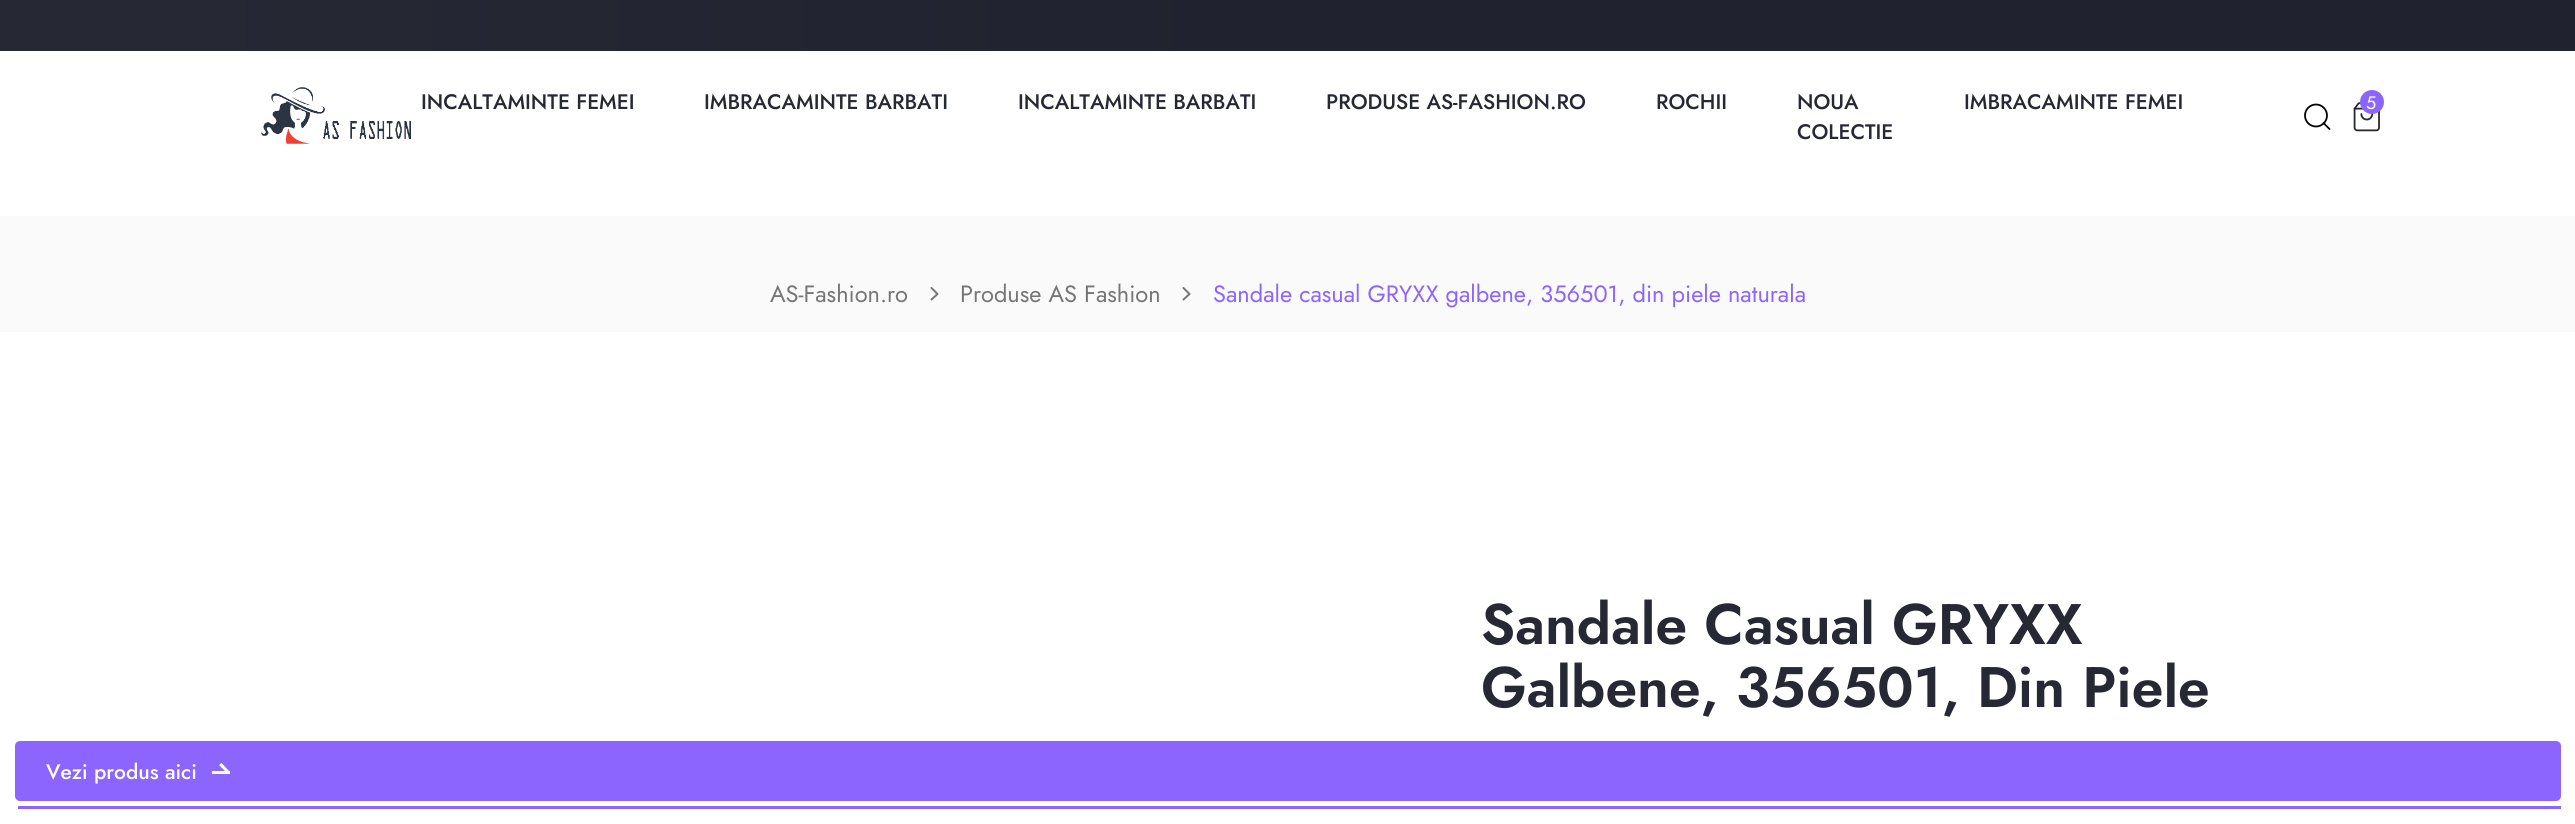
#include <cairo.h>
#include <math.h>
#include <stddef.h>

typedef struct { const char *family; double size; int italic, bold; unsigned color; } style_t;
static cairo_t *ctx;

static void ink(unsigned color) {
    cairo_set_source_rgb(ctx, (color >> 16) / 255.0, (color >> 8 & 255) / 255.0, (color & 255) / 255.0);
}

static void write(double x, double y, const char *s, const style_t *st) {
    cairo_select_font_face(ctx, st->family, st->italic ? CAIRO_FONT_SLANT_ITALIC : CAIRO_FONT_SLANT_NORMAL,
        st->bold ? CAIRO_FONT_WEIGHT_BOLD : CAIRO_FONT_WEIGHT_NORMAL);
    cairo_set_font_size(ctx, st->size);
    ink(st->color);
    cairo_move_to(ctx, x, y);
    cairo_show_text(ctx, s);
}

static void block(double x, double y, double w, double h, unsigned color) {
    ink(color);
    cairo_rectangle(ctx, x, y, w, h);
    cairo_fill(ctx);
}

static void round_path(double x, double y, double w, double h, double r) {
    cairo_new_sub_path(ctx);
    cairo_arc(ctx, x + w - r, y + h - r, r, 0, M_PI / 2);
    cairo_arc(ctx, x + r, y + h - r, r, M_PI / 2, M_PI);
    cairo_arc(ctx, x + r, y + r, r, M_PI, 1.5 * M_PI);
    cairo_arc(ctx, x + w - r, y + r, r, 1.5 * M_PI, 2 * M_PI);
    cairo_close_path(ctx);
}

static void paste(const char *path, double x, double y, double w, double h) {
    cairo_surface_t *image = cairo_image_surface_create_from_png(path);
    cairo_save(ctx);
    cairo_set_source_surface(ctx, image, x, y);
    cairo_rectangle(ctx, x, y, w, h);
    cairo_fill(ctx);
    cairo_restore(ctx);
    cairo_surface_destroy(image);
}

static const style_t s1 = {"Jost Medium", 21, 0, 0, 0x262834};
static const style_t s2 = {"Jost", 18, 0, 0, 0xffffff};
static const style_t s3 = {"Jost", 23.6, 0, 0, 0x767676};
static const style_t s4 = {"Jost", 23.6, 0, 0, 0x8c65ff};
static const style_t s5 = {"Jost SemiBold", 57, 0, 0, 0x262834};
static const style_t s6 = {"Jost Medium", 21, 0, 0, 0xffffff};

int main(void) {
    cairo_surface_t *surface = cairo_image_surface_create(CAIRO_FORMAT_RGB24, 2575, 824);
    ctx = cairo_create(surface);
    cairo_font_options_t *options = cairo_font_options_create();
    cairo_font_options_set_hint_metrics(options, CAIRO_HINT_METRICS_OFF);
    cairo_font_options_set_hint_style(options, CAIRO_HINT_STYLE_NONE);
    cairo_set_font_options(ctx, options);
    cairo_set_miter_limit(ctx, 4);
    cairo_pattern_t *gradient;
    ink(0xffffff);
    cairo_paint(ctx);
    gradient = cairo_pattern_create_linear(0, 26, 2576, 25);
    cairo_pattern_add_color_stop_rgba(gradient, 0.06, 0.149, 0.157, 0.204, 1);
    cairo_pattern_add_color_stop_rgba(gradient, 0.5, 0.125, 0.133, 0.184, 1);
    cairo_set_source(ctx, gradient);
    cairo_pattern_destroy(gradient);
    cairo_rectangle(ctx, 0, 0, 2575, 51);
    cairo_fill(ctx);
    paste("pic1.png", 261, 87, 150, 57);
    write(421, 109, "INCALTAMINTE FEMEI", &s1);
    write(704, 109, "IMBRACAMINTE BARBATI", &s1);
    write(1018, 109, "INCALTAMINTE BARBATI", &s1);
    write(1326, 109, "PRODUSE AS-FASHION.RO", &s1);
    write(1656, 109, "ROCHII", &s1);
    write(1797, 109, "NOUA", &s1);
    write(1797, 139, "COLECTIE", &s1);
    write(1964, 109, "IMBRACAMINTE FEMEI", &s1);
    cairo_new_path(ctx);
    cairo_arc(ctx, 2316, 115.5, 11, 0, 2 * M_PI);
    ink(0x000000);
    cairo_set_line_width(ctx, 1.8);
    cairo_stroke(ctx);
    cairo_new_path(ctx);
    cairo_move_to(ctx, 2329.5, 129);
    cairo_line_to(ctx, 2323.5, 123);
    cairo_set_line_cap(ctx, CAIRO_LINE_CAP_ROUND);
    cairo_set_line_join(ctx, CAIRO_LINE_JOIN_ROUND);
    cairo_stroke(ctx);
    paste("pic2.png", 2353, 102, 27, 30);
    ink(0x8c65ff);
    cairo_arc(ctx, 2372, 102, 12, 0, 2 * M_PI);
    cairo_fill(ctx);
    write(2366, 109, "5", &s2);
    block(0, 216, 2575, 116, 0xfafafa);
    write(770, 302, "AS-Fashion.ro", &s3);
    cairo_new_path(ctx);
    cairo_move_to(ctx, 931.5, 299.5);
    cairo_line_to(ctx, 937.5, 294);
    cairo_line_to(ctx, 931.5, 288);
    cairo_set_line_width(ctx, 2);
    cairo_stroke(ctx);
    write(960, 302, "Produse AS Fashion", &s3);
    cairo_new_path(ctx);
    cairo_move_to(ctx, 1183.5, 299.5);
    cairo_line_to(ctx, 1189.5, 294);
    cairo_line_to(ctx, 1183.5, 288);
    cairo_stroke(ctx);
    write(1213, 302, "Sandale casual GRYXX galbene, 356501, din piele naturala", &s4);
    write(1481, 644, "Sandale Casual GRYXX", &s5);
    write(1481, 707, "Galbene, 356501, Din Piele", &s5);
    ink(0x8c65ff);
    round_path(15, 741, 2546, 60, 5);
    cairo_fill(ctx);
    write(46, 779, "Vezi produs aici", &s6);
    block(212, 771, 18, 3, 0xffffff);
    cairo_new_path(ctx);
    cairo_move_to(ctx, 221.5, 763);
    cairo_line_to(ctx, 229, 771);
    cairo_line_to(ctx, 227, 773);
    cairo_line_to(ctx, 219, 765);
    cairo_close_path(ctx);
    cairo_fill(ctx);
    block(18, 806, 2543, 3, 0x8c65ff);
    cairo_surface_write_to_png(surface, "screenshot.png");
    cairo_font_options_destroy(options);
    cairo_destroy(ctx);
    cairo_surface_destroy(surface);
    return 0;
}
